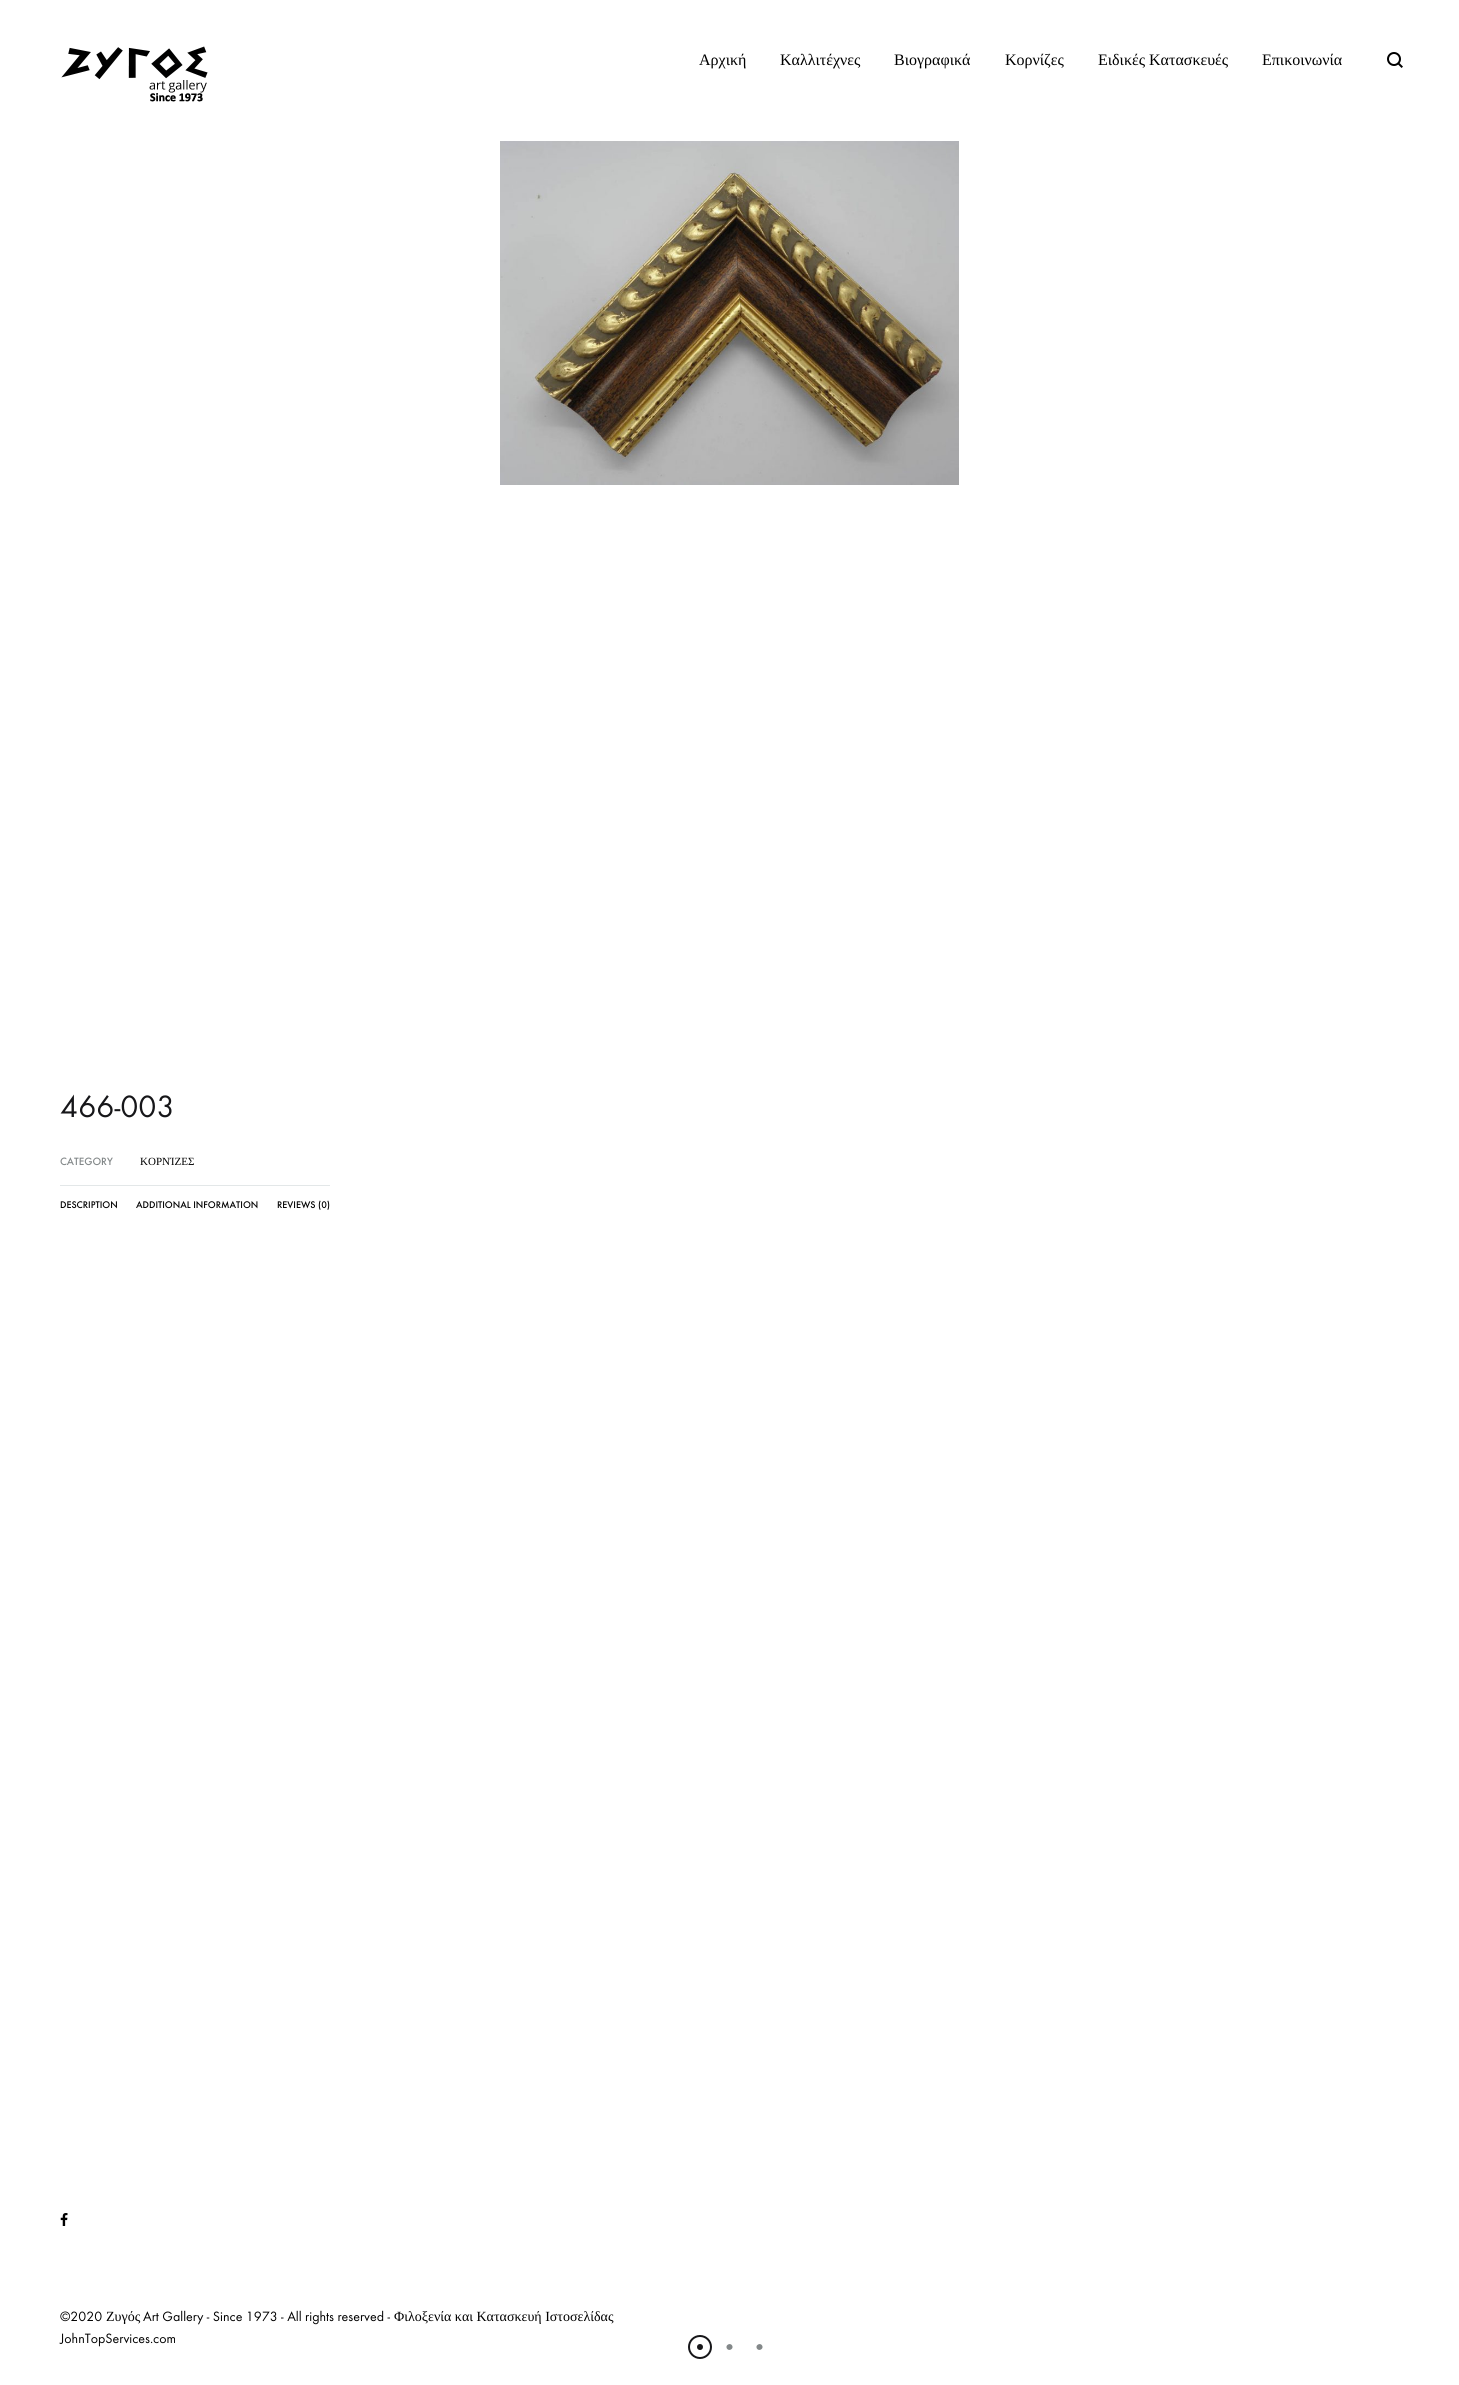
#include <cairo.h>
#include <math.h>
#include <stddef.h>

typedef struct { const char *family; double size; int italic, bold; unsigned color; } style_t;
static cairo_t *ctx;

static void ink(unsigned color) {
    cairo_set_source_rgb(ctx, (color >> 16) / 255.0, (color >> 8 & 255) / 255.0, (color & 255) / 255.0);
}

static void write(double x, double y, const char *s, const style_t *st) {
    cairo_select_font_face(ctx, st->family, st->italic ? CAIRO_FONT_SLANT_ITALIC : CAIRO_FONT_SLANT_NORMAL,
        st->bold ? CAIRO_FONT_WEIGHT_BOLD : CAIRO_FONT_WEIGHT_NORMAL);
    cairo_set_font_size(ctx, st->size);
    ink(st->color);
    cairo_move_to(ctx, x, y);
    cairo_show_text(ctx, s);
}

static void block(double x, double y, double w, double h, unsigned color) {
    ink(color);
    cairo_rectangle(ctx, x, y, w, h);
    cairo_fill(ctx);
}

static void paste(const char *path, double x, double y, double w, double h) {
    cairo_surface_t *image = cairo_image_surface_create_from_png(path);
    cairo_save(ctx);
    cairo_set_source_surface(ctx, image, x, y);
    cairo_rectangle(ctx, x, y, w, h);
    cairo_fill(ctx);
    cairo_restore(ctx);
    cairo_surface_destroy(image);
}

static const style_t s1 = {"Liberation Serif", 16, 0, 0, 0x000000};
static const style_t s2 = {"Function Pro", 32, 0, 0, 0x161619};
static const style_t s3 = {"Function Pro Medium", 11, 0, 0, 0x838889};
static const style_t s4 = {"Liberation Serif", 11, 0, 0, 0x000000};
static const style_t s5 = {"Function Pro Medium", 10, 0, 0, 0x000000};
static const style_t s6 = {"Function Pro", 14, 0, 0, 0x000000};
static const style_t s7 = {"Liberation Serif", 14, 0, 0, 0x000000};

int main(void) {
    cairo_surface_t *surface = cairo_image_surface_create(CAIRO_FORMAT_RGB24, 1459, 2385);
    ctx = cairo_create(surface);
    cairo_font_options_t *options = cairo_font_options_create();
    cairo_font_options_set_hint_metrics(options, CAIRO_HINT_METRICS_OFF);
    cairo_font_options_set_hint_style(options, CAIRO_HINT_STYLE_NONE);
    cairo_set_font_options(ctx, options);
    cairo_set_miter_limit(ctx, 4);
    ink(0xffffff);
    cairo_paint(ctx);
    paste("pic1.png", 61, 46, 147, 56);
    write(699, 65, "Αρχική", &s1);
    write(780, 65, "Καλλιτέχνες", &s1);
    write(894, 65, "Βιογραφικά", &s1);
    write(1005, 65, "Κορνίζες", &s1);
    write(1098, 65, "Ειδικές Κατασκευές", &s1);
    write(1262, 65, "Επικοινωνία", &s1);
    paste("pic2.png", 1387, 52, 16, 16);
    write(60, 1117, "466-003", &s2);
    write(60, 1165, "CATEGORY", &s3);
    write(140, 1165, "ΚΟΡΝΊΖΕΣ", &s4);
    block(60, 1185, 270, 1, 0xe3e7e8);
    write(60, 1208, "DESCRIPTION", &s5);
    write(136, 1208, "ADDITIONAL INFORMATION", &s5);
    write(277, 1208, "REVIEWS (0)", &s5);
    paste("pic3.png", 500, 141, 459, 344);
    ink(0x161619);
    cairo_arc(ctx, 700, 2347, 3, 0, 2 * M_PI);
    cairo_fill(ctx);
    cairo_arc(ctx, 700, 2347, 11, 0, 2 * M_PI);
    cairo_stroke(ctx);
    ink(0x838889);
    cairo_new_path(ctx);
    cairo_move_to(ctx, 728, 2344.5);
    cairo_curve_to(ctx, 731.5, 2342.5, 734.5, 2347.5, 731, 2349.5);
    cairo_curve_to(ctx, 727.5, 2351.5, 724.5, 2346.5, 728, 2344.5);
    cairo_close_path(ctx);
    cairo_move_to(ctx, 758, 2344.5);
    cairo_curve_to(ctx, 761.5, 2342.5, 764.5, 2347.5, 761, 2349.5);
    cairo_curve_to(ctx, 757.5, 2351.5, 754.5, 2346.5, 758, 2344.5);
    cairo_close_path(ctx);
    cairo_fill(ctx);
    paste("pic4.png", 60, 2213, 8, 13);
    write(60, 2321, "©2020", &s6);
    write(106, 2321, "Ζυγός", &s7);
    write(143, 2321, "Art Gallery - Since 1973 - All rights reserved -", &s6);
    write(394, 2321, "Φιλοξενία και Κατασκευή Ιστοσελίδας", &s7);
    write(60, 2343, "JohnTopServices.com", &s6);
    cairo_surface_write_to_png(surface, "screenshot.png");
    cairo_font_options_destroy(options);
    cairo_destroy(ctx);
    cairo_surface_destroy(surface);
    return 0;
}
